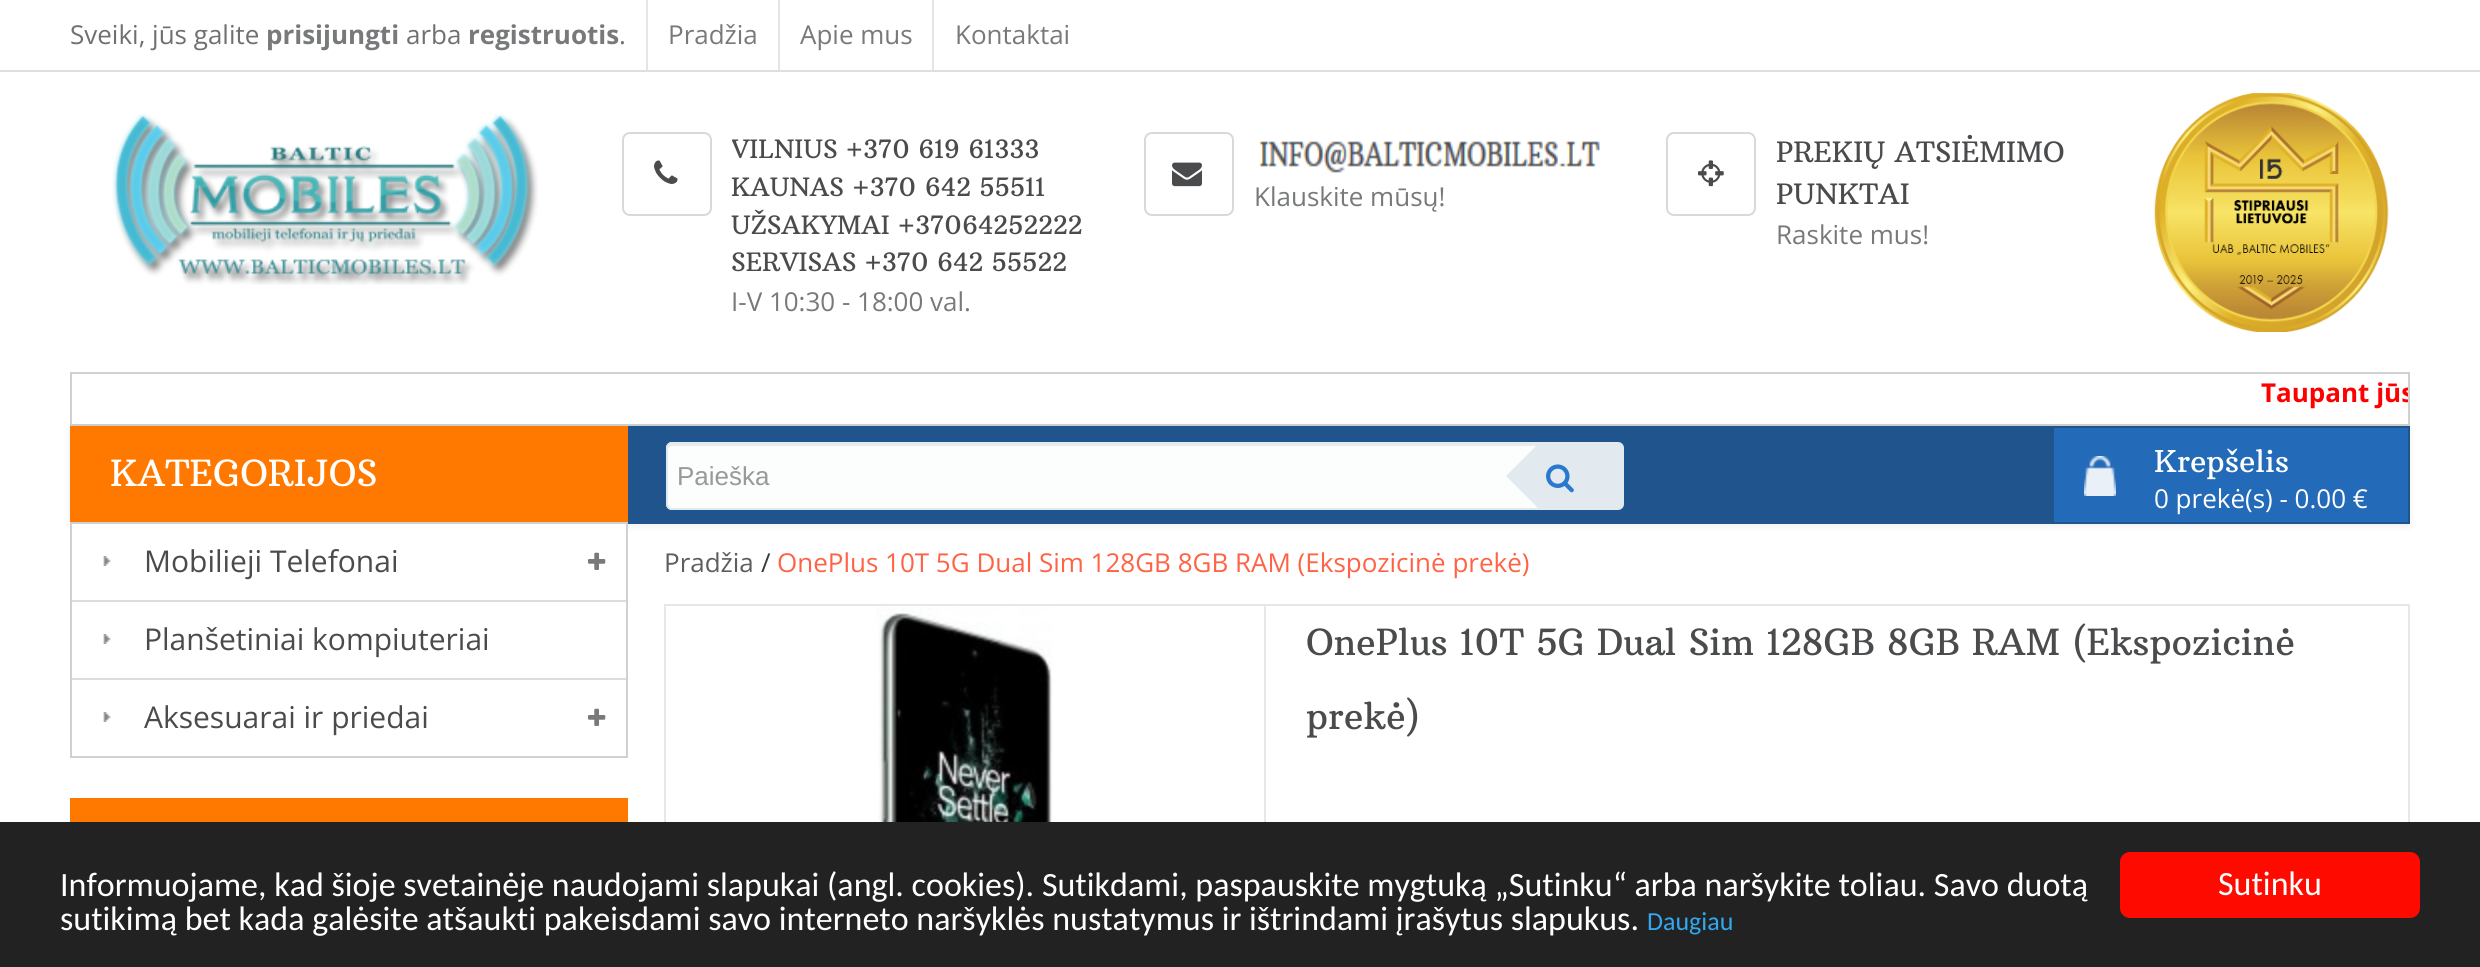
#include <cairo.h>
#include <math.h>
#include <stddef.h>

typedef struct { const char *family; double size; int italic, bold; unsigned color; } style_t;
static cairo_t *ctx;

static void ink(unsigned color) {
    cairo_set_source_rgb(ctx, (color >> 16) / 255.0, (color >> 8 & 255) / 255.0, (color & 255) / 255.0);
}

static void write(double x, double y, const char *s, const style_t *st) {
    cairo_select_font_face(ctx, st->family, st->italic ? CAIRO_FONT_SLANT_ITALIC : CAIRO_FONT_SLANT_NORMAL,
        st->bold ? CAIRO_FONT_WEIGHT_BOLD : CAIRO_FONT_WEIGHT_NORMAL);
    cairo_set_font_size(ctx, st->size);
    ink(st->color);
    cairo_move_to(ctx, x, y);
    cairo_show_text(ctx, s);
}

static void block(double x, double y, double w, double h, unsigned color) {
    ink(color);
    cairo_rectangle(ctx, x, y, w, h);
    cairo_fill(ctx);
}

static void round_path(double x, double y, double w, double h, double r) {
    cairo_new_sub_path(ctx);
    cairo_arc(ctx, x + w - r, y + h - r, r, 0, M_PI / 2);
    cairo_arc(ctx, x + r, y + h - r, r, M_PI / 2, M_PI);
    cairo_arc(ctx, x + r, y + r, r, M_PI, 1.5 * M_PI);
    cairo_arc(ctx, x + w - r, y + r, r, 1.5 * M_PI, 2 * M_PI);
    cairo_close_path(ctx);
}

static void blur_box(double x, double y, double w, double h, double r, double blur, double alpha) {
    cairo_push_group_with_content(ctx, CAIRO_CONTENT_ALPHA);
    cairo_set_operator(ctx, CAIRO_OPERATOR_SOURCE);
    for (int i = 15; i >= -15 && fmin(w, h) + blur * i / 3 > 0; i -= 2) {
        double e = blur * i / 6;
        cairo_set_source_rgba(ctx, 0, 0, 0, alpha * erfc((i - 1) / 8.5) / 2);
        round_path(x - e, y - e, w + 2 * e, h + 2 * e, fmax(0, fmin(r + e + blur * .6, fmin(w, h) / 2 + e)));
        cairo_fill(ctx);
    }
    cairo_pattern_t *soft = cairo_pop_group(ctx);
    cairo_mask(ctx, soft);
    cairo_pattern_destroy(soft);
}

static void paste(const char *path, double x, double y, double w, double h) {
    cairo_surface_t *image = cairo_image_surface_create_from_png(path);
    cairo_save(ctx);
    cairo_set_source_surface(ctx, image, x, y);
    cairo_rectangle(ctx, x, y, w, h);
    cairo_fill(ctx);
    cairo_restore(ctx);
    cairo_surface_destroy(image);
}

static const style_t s1 = {"Open Sans", 26, 0, 0, 0x707070};
static const style_t s2 = {"Open Sans", 26, 0, 1, 0x78797b};
static const style_t s3 = {"Open Sans", 26, 0, 0, 0x78797b};
static const style_t s4 = {"Arbutus Slab", 25.25, 0, 0, 0x4a4b4d};
static const style_t s5 = {"Arbutus Slab", 28, 0, 0, 0x4a4b4d};
static const style_t s6 = {"Open Sans", 26, 0, 1, 0xff0000};
static const style_t s7 = {"Liberation Sans", 26, 0, 0, 0x999999};
static const style_t s8 = {"Arbutus Slab", 30, 0, 0, 0xffffff};
static const style_t s9 = {"Open Sans", 26, 0, 0, 0xffffff};
static const style_t s10 = {"Arbutus Slab", 36, 0, 0, 0xffffff};
static const style_t s11 = {"Open Sans", 30, 0, 0, 0x4a4b4d};
static const style_t s12 = {"Open Sans", 26, 0, 0, 0x5d5e60};
static const style_t s13 = {"Open Sans", 26, 0, 0, 0x353d41};
static const style_t s14 = {"Open Sans", 26, 0, 0, 0xff6346};
static const style_t s15 = {"Arbutus Slab", 36, 0, 0, 0x4a4b4d};
static const style_t s16 = {"Carlito", 34, 0, 0, 0xffffff};
static const style_t s17 = {"Carlito", 26, 0, 0, 0x31a8f0};

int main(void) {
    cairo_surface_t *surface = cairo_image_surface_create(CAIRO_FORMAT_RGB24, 2480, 967);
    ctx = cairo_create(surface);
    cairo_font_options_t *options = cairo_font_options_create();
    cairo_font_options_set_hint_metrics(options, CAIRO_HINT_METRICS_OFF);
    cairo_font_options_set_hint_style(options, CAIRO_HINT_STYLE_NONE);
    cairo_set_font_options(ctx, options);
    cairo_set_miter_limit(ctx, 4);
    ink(0xffffff);
    cairo_paint(ctx);
    block(0, 70, 2480, 2, 0xdfdfdf);
    write(70, 44, "Sveiki, jūs galite", &s1);
    write(266, 44, "prisijungti", &s2);
    write(406, 44, "arba", &s1);
    write(468, 44, "registruotis", &s2);
    write(619, 44, ".", &s1);
    block(646, 0, 2, 70, 0xe5e5e5);
    write(668, 44, "Pradžia", &s3);
    block(778, 0, 2, 70, 0xe5e5e5);
    write(800, 44, "Apie mus", &s3);
    block(932, 0, 2, 70, 0xe5e5e5);
    write(955, 44, "Kontaktai", &s3);
    paste("pic1.png", 112, 113, 426, 172);
    round_path(623, 133, 88, 82, 7);
    ink(0xd9d9d9);
    cairo_stroke(ctx);
    paste("pic2.png", 654, 160, 24, 24);
    cairo_save(ctx);
    cairo_rectangle(ctx, 732, 132, 352, 190);
    cairo_clip(ctx);
    write(731, 158, "VILNIUS +370 619 61333", &s4);
    cairo_restore(ctx);
    write(731, 196, "KAUNAS +370 642 55511", &s4);
    write(731, 234, "UŽSAKYMAI +37064252222", &s4);
    write(731, 271, "SERVISAS +370 642 55522", &s4);
    write(731, 311, "I-V 10:30 - 18:00 val.", &s3);
    round_path(1145, 133, 88, 82, 7);
    ink(0xd9d9d9);
    cairo_stroke(ctx);
    paste("pic3.png", 1172, 162, 30, 25);
    paste("pic4.png", 1258, 141, 342, 32);
    write(1254, 206, "Klauskite mūsų!", &s3);
    round_path(1667, 133, 88, 82, 7);
    ink(0xd9d9d9);
    cairo_stroke(ctx);
    paste("pic5.png", 1698, 160, 26, 27);
    write(1776, 162, "PREKIŲ ATSIĖMIMO", &s5);
    write(1776, 204, "PUNKTAI", &s5);
    write(1776, 244, "Raskite mus!", &s3);
    paste("pic6.png", 2154, 93, 235, 239);
    cairo_rectangle(ctx, 71, 373, 2338, 52);
    ink(0xd0d0d0);
    cairo_stroke(ctx);
    cairo_save(ctx);
    cairo_rectangle(ctx, 72, 374, 2336, 40);
    cairo_clip(ctx);
    write(2261, 402, "Taupant jūs", &s6);
    cairo_restore(ctx);
    block(628, 426, 1782, 98, 0x20548d);
    cairo_save(ctx);
    cairo_set_fill_rule(ctx, CAIRO_FILL_RULE_EVEN_ODD);
    cairo_new_path(ctx);
    cairo_move_to(ctx, 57, 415);
    cairo_line_to(ctx, 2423, 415);
    cairo_line_to(ctx, 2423, 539);
    cairo_line_to(ctx, 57, 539);
    cairo_close_path(ctx);
    cairo_move_to(ctx, 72, 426);
    cairo_line_to(ctx, 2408, 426);
    cairo_curve_to(ctx, 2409, 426, 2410, 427, 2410, 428);
    cairo_line_to(ctx, 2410, 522);
    cairo_curve_to(ctx, 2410, 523, 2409, 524, 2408, 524);
    cairo_line_to(ctx, 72, 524);
    cairo_curve_to(ctx, 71, 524, 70, 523, 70, 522);
    cairo_line_to(ctx, 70, 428);
    cairo_curve_to(ctx, 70, 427, 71, 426, 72, 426);
    cairo_close_path(ctx);
    cairo_clip(ctx);
    ink(0x000000);
    blur_box(70, 428, 2340, 98, 2, 4, 0.07);
    cairo_restore(ctx);
    ink(0xfcfdfd);
    round_path(666, 442, 924, 68, 6);
    cairo_fill(ctx);
    ink(0xe9eaea);
    cairo_new_path(ctx);
    cairo_move_to(ctx, 672, 446);
    cairo_line_to(ctx, 1584, 446);
    cairo_curve_to(ctx, 1586, 446, 1588, 448, 1588, 450);
    cairo_line_to(ctx, 1588, 448);
    cairo_curve_to(ctx, 1588, 446, 1586, 444, 1584, 444);
    cairo_line_to(ctx, 672, 444);
    cairo_curve_to(ctx, 670, 444, 668, 446, 668, 448);
    cairo_line_to(ctx, 668, 450);
    cairo_curve_to(ctx, 668, 448, 670, 446, 672, 446);
    cairo_close_path(ctx);
    cairo_fill(ctx);
    round_path(667, 443, 922, 66, 5);
    ink(0xe2eaef);
    cairo_stroke(ctx);
    write(677, 485, "Paieška", &s7);
    ink(0xe2eaef);
    round_path(1536, 442, 88, 68, 6);
    cairo_fill(ctx);
    cairo_new_path(ctx);
    cairo_move_to(ctx, 1540, 442);
    cairo_line_to(ctx, 1540, 510);
    cairo_line_to(ctx, 1506, 476);
    cairo_close_path(ctx);
    cairo_fill(ctx);
    paste("pic7.png", 1546, 464, 28, 29);
    block(2054, 428, 354, 94, 0x236ab8);
    paste("pic8.png", 2084, 456, 32, 40);
    write(2154, 472, "Krepšelis", &s8);
    write(2154, 508, "0 prekė(s) - 0.00 €", &s9);
    block(70, 426, 558, 96, 0xff7800);
    write(110, 486, "KATEGORIJOS", &s10);
    block(72, 524, 554, 6, 0xffffff);
    cairo_rectangle(ctx, 71, 523, 556, 234);
    ink(0xd0d0d0);
    cairo_stroke(ctx);
    paste("pic9.png", 103, 556, 8, 10);
    write(144, 572, "Mobilieji Telefonai", &s11);
    paste("pic10.png", 588, 552, 18, 18);
    block(72, 600, 554, 2, 0xdddddd);
    paste("pic9.png", 103, 634, 8, 10);
    write(144, 650, "Planšetiniai kompiuteriai", &s11);
    block(72, 678, 554, 2, 0xdddddd);
    paste("pic9.png", 103, 712, 8, 10);
    write(144, 728, "Aksesuarai ir priedai", &s11);
    paste("pic10.png", 588, 708, 18, 18);
    block(70, 798, 558, 24, 0xff7800);
    write(664, 572, "Pradžia", &s12);
    write(761, 572, "/", &s13);
    write(777, 572, "OnePlus 10T 5G Dual Sim 128GB 8GB RAM (Ekspozicinė prekė)", &s14);
    cairo_rectangle(ctx, 665, 605, 1744, 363);
    ink(0xe7e7e7);
    cairo_stroke(ctx);
    block(1264, 606, 2, 216, 0xe7e7e7);
    paste("pic11.png", 876, 606, 181, 216);
    write(1306, 655, "OnePlus 10T 5G Dual Sim 128GB 8GB RAM (Ekspozicinė", &s15);
    write(1306, 729, "prekė)", &s15);
    block(0, 822, 2480, 145, 0x222222);
    write(60, 896, "Informuojame, kad šioje svetainėje naudojami slapukai (angl. cookies). Sutikdami, paspauskite mygtuką „Sutinku“ arba naršykite toliau. Savo duotą", &s16);
    write(60, 930, "sutikimą bet kada galėsite atšaukti pakeisdami savo interneto naršyklės nustatymus ir ištrindami įrašytus slapukus.", &s16);
    write(1647, 930, "Daugiau", &s17);
    ink(0xff0a00);
    round_path(2120, 852, 300, 66, 10);
    cairo_fill(ctx);
    write(2218, 895, "Sutinku", &s16);
    cairo_surface_write_to_png(surface, "screenshot.png");
    cairo_font_options_destroy(options);
    cairo_destroy(ctx);
    cairo_surface_destroy(surface);
    return 0;
}
